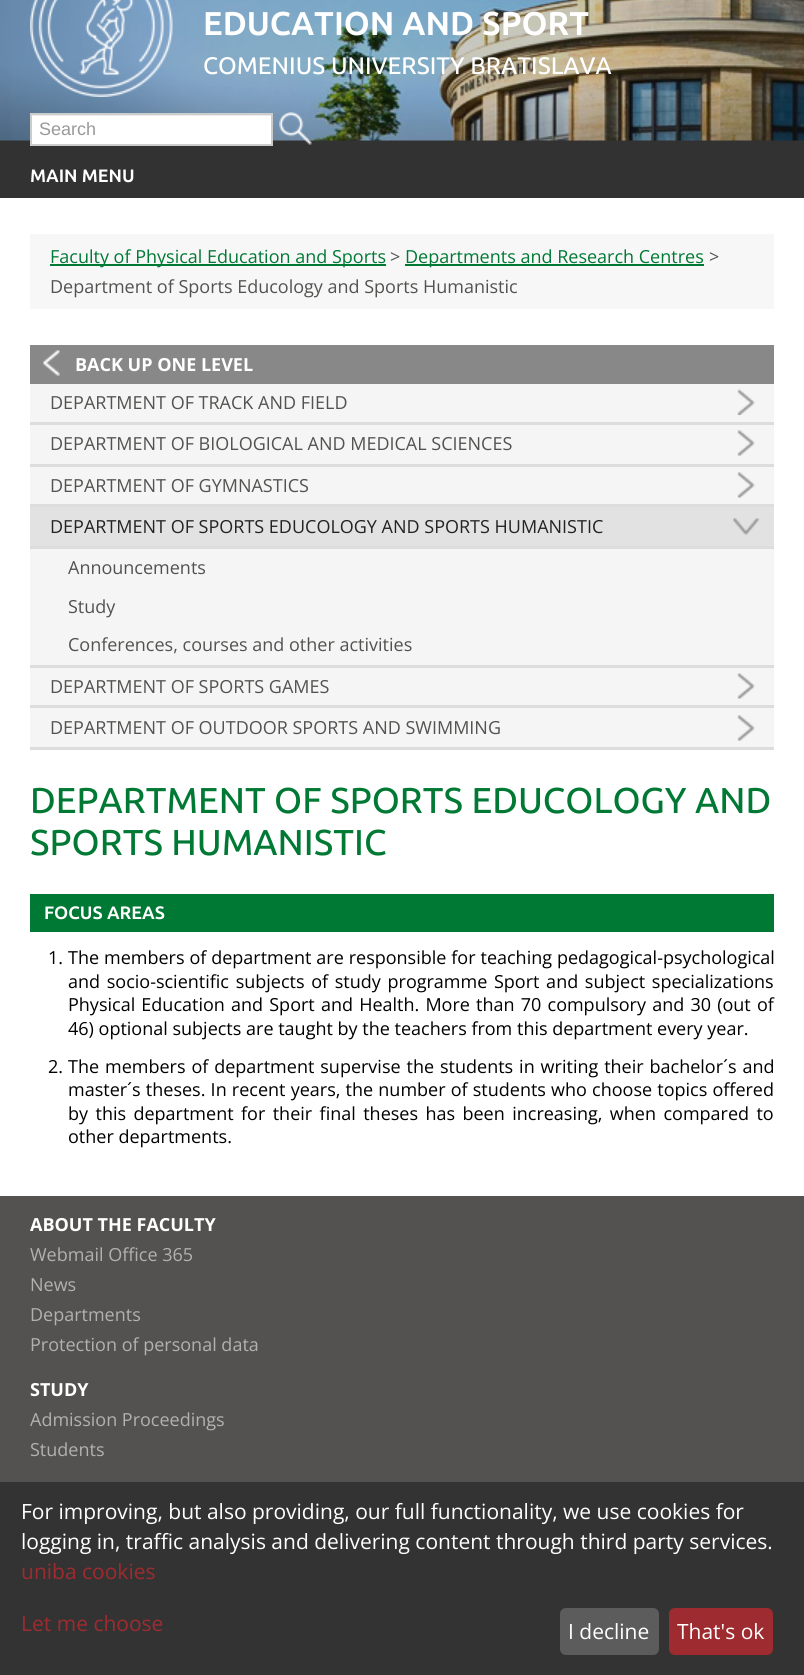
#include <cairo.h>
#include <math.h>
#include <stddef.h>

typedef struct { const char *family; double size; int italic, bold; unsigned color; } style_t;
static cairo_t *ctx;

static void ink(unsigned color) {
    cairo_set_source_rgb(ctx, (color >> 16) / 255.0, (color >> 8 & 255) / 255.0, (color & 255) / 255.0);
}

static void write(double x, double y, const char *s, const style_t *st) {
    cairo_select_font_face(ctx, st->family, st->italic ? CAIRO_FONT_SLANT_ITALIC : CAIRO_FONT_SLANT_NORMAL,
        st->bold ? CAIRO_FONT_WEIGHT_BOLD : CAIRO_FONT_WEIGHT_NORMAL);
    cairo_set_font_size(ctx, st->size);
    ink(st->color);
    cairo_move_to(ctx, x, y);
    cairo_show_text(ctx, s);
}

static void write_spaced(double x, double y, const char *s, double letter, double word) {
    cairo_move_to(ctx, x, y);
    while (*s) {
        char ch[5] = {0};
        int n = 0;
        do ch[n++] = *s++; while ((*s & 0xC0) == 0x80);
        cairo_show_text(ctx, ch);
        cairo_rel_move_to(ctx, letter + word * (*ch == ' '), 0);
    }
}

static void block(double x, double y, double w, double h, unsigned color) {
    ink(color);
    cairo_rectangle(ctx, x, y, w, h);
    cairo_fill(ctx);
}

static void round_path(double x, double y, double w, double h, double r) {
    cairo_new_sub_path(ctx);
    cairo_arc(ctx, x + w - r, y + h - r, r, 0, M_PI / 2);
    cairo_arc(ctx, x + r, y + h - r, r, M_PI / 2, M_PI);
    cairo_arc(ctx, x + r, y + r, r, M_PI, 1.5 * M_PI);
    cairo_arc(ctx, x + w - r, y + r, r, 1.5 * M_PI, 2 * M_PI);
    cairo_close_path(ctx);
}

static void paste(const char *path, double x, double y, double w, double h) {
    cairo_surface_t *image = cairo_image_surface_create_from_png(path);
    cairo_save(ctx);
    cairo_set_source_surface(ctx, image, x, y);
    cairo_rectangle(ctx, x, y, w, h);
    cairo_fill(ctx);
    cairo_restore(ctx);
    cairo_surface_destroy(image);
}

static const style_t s1 = {"Ubuntu", 33, 0, 1, 0xffffff};
static const style_t s2 = {"Ubuntu Medium", 24, 0, 0, 0xffffff};
static const style_t s3 = {"Liberation Sans", 18, 0, 0, 0x999999};
static const style_t s4 = {"Ubuntu", 18, 0, 1, 0xffffff};
static const style_t s5 = {"Open Sans", 18, 0, 0, 0x007934};
static const style_t s6 = {"Open Sans", 18, 0, 0, 0x535250};
static const style_t s7 = {"Open Sans", 18, 0, 1, 0xffffff};
static const style_t s8 = {"Open Sans", 18, 0, 0, 0x222222};
static const style_t s9 = {"Ubuntu Medium", 36, 0, 0, 0x007934};
static const style_t s10 = {"Open Sans", 18, 0, 0, 0x000000};
static const style_t s11 = {"Open Sans", 18, 0, 0, 0xb1b1b1};
static const style_t s12 = {"Open Sans", 21, 0, 0, 0xffffff};
static const style_t s13 = {"Open Sans", 21, 0, 0, 0x9e2b2f};

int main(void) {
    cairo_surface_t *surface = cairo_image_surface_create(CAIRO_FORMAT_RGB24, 804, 1675);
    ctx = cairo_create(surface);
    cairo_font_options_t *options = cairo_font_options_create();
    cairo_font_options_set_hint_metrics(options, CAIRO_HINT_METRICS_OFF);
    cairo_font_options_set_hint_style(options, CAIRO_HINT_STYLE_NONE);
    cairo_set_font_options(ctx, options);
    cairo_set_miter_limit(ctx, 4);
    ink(0xffffff);
    cairo_paint(ctx);
    block(0, 140, 804, 58, 0x323232);
    paste("pic1.png", 0, 0, 804, 141);
    paste("pic2.png", 30, 0, 143, 97);
    write(203, 35, "EDUCATION AND SPORT", &s1);
    write(203, 74, "COMENIUS UNIVERSITY BRATISLAVA", &s2);
    block(32, 116, 239, 28, 0xffffff);
    block(32, 115, 240, 1, 0xececec);
    cairo_rectangle(ctx, 31, 114, 241, 31);
    ink(0xcccccc);
    cairo_stroke(ctx);
    write(39, 135, "Search", &s3);
    paste("pic3.png", 279, 112, 33, 33);
    write(30, 182, "MAIN MENU", &s4);
    block(30, 234, 744, 75, 0xf7f7f7);
    block(50, 264, 336, 2, 0x007934);
    write(50, 263, "Faculty of Physical Education and Sports", &s5);
    write(390, 263, ">", &s6);
    block(405, 264, 299, 2, 0x007934);
    write(405, 263, "Departments and Research Centres", &s5);
    write(709, 263, ">", &s6);
    write(50, 293, "Department of Sports Educology and Sports Humanistic", &s6);
    block(30, 384, 744, 363, 0xf5f5f5);
    block(30, 345, 744, 39, 0x888888);
    paste("pic4.png", 43, 350, 17, 26);
    write(75, 371, "BACK UP ONE LEVEL", &s7);
    block(30, 422, 744, 3, 0xdddddd);
    paste("pic5.png", 737, 389, 18, 26);
    write(50, 409, "DEPARTMENT OF TRACK AND FIELD", &s6);
    block(30, 464, 744, 3, 0xdddddd);
    paste("pic6.png", 737, 430, 18, 26);
    write(50, 450, "DEPARTMENT OF BIOLOGICAL AND MEDICAL SCIENCES", &s6);
    block(30, 504, 744, 3, 0xdddddd);
    paste("pic6.png", 737, 472, 18, 26);
    write(50, 492, "DEPARTMENT OF GYMNASTICS", &s6);
    block(30, 665, 744, 3, 0xdddddd);
    block(30, 507, 744, 39, 0xe2e2e2);
    paste("pic7.png", 733, 518, 27, 18);
    write(50, 533, "DEPARTMENT OF SPORTS EDUCOLOGY AND SPORTS HUMANISTIC", &s8);
    block(30, 546, 744, 3, 0xdddddd);
    write(68, 574, "Announcements", &s6);
    write(68, 613, "Study", &s6);
    write(68, 651, "Conferences, courses and other activities", &s6);
    block(30, 705, 744, 3, 0xdddddd);
    paste("pic6.png", 737, 673, 18, 26);
    write(50, 693, "DEPARTMENT OF SPORTS GAMES", &s6);
    block(30, 747, 744, 3, 0xdddddd);
    paste("pic6.png", 737, 715, 18, 26);
    write(50, 734, "DEPARTMENT OF OUTDOOR SPORTS AND SWIMMING", &s6);
    write(30, 813, "DEPARTMENT OF SPORTS EDUCOLOGY AND", &s9);
    write(30, 855, "SPORTS HUMANISTIC", &s9);
    block(30, 894, 744, 38, 0x007934);
    write(44, 919, "FOCUS AREAS", &s4);
    write(48, 964, "1.", &s10);
    write_spaced(68, 964, "The members of department are responsible for teaching pedagogical-psychological", 0, 0.25);
    write_spaced(68, 988, "and socio-scientific subjects of study programme Sport and subject specializations", 0, 2);
    write_spaced(68, 1011, "Physical Education and Sport and Health. More than 70 compulsory and 30 (out of", 0, 1.5);
    write(68, 1035, "46) optional subjects are taught by the teachers from this department every year.", &s10);
    write(48, 1073, "2.", &s10);
    write_spaced(68, 1073, "The members of department supervise the students in writing their bachelor´s and", 0, 1.25);
    write_spaced(68, 1096, "master´s theses. In recent years, the number of students who choose topics offered", 0, 0.5);
    write_spaced(68, 1120, "by this department for their final theses has been increasing, when compared to", 0, 2.75);
    write(68, 1143, "other departments.", &s10);
    block(0, 1196, 804, 286, 0x535250);
    write(30, 1231, "ABOUT THE FACULTY", &s7);
    write(30, 1261, "Webmail Office 365", &s11);
    write(30, 1291, "News", &s11);
    write(30, 1321, "Departments", &s11);
    write(30, 1351, "Protection of personal data", &s11);
    write(30, 1396, "STUDY", &s7);
    write(30, 1426, "Admission Proceedings", &s11);
    write(30, 1456, "Students", &s11);
    block(0, 1482, 804, 193, 0x333333);
    write(21, 1519, "For improving, but also providing, our full functionality, we use cookies for", &s12);
    write(21, 1549, "logging in, traffic analysis and delivering content through third party services.", &s12);
    write(21, 1579, "uniba cookies", &s13);
    write(21, 1631, "Let me choose", &s13);
    ink(0x5c5c5c);
    round_path(560, 1608, 99, 47, 6);
    cairo_fill(ctx);
    write(568, 1639, "I decline", &s12);
    ink(0x9e2b2f);
    round_path(669, 1608, 104, 47, 6);
    cairo_fill(ctx);
    write(677, 1639, "That's ok", &s12);
    cairo_surface_write_to_png(surface, "screenshot.png");
    cairo_font_options_destroy(options);
    cairo_destroy(ctx);
    cairo_surface_destroy(surface);
    return 0;
}
